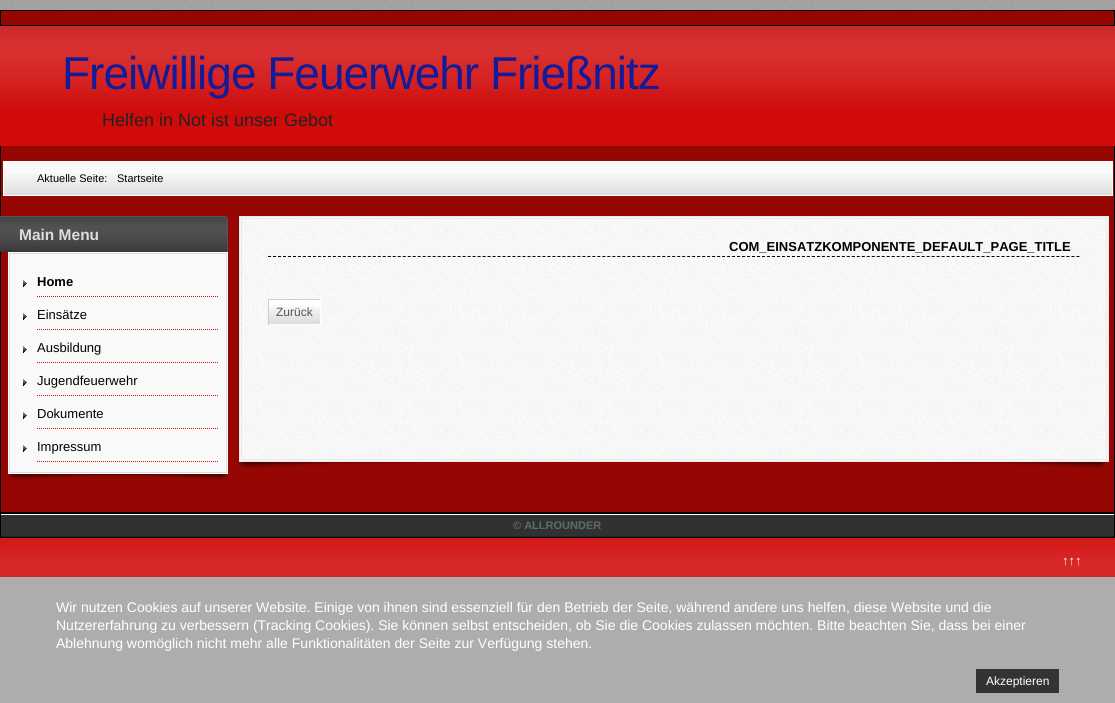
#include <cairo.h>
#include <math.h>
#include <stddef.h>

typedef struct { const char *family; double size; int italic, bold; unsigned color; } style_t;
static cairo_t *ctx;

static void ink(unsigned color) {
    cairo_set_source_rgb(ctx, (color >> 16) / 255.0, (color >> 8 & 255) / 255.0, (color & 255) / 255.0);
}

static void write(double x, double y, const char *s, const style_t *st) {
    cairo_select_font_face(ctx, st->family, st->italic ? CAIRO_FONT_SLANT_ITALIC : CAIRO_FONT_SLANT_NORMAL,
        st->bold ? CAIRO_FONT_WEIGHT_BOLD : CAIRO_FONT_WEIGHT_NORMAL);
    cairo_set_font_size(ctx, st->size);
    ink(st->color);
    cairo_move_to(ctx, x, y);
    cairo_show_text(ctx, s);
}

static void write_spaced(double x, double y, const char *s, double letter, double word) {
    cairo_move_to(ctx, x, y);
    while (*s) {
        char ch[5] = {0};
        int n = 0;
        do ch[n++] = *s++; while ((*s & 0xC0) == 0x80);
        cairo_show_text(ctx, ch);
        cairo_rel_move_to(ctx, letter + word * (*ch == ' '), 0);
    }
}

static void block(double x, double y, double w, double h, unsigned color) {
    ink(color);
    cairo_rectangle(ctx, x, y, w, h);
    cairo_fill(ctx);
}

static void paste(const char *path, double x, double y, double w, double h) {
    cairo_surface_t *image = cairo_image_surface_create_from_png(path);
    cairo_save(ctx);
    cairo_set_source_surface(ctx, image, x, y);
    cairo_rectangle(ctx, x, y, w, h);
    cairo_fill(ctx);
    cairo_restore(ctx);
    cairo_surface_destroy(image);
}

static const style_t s1 = {"Liberation Sans", 18, 0, 0, 0x222222};
static const style_t s2 = {"Liberation Sans", 11, 0, 0, 0x000000};
static const style_t s3 = {"Liberation Sans", 15.5, 0, 1, 0xdddddd};
static const style_t s4 = {"Liberation Sans", 13, 0, 1, 0x000000};
static const style_t s5 = {"Liberation Sans", 13, 0, 0, 0x000000};
static const style_t s6 = {"Liberation Sans", 12, 0, 0, 0x555555};
static const style_t s7 = {"Liberation Sans", 11, 0, 1, 0x5b6c71};
static const style_t s8 = {"Liberation Sans", 13, 0, 0, 0xffffff};
static const style_t s9 = {"Liberation Sans", 14, 0, 0, 0xffffff};
static const style_t s10 = {"Liberation Sans", 12, 0, 0, 0xffffff};

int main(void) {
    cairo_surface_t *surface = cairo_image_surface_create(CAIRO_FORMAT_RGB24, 1115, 703);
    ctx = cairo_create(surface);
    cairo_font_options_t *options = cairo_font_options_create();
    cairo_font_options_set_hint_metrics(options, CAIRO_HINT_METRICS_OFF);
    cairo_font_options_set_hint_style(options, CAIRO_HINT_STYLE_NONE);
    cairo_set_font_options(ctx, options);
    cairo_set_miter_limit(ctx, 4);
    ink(0x9c9c9c);
    cairo_paint(ctx);
    paste("pic1.png", 0, 0, 1115, 10);
    ink(0x960602);
    cairo_rectangle(ctx, 0.5, 10.5, 1114, 502);
    cairo_fill_preserve(ctx);
    ink(0x000000);
    cairo_set_line_width(ctx, 1);
    cairo_stroke(ctx);
    block(0, 26, 1115, 120, 0xd10a0a);
    paste("pic2.png", 0, 26, 1115, 84);
    ink(0x000000);
    cairo_set_fill_rule(ctx, CAIRO_FILL_RULE_EVEN_ODD);
    cairo_new_path(ctx);
    cairo_move_to(ctx, -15, 25);
    cairo_line_to(ctx, 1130, 25);
    cairo_curve_to(ctx, 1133, 25, 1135, 27, 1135, 30);
    cairo_line_to(ctx, 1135, 146);
    cairo_line_to(ctx, -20, 146);
    cairo_line_to(ctx, -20, 30);
    cairo_curve_to(ctx, -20, 27, -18, 25, -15, 25);
    cairo_close_path(ctx);
    cairo_move_to(ctx, -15, 26);
    cairo_line_to(ctx, 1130, 26);
    cairo_curve_to(ctx, 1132, 26, 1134, 28, 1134, 30);
    cairo_line_to(ctx, 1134, 146);
    cairo_line_to(ctx, -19, 146);
    cairo_line_to(ctx, -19, 30);
    cairo_curve_to(ctx, -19, 28, -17, 26, -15, 26);
    cairo_close_path(ctx);
    cairo_fill(ctx);
    cairo_select_font_face(ctx, "Liberation Sans", CAIRO_FONT_SLANT_NORMAL, CAIRO_FONT_WEIGHT_NORMAL);
    cairo_set_font_size(ctx, 46);
    ink(0x121b99);
    write_spaced(62, 89, "Freiwillige Feuerwehr Frießnitz", -1, 0);
    write(102, 126, "Helfen in Not ist unser Gebot", &s1);
    block(4, 162, 1108, 33, 0xf9f9f9);
    paste("pic3.png", 4, 174, 1108, 21);
    cairo_rectangle(ctx, 3.5, 161.5, 1109, 34);
    ink(0xffffff);
    cairo_stroke(ctx);
    write(37, 182, "Aktuelle Seite:", &s2);
    write(117, 182, "Startseite", &s2);
    ink(0x383838);
    cairo_new_path(ctx);
    cairo_move_to(ctx, 0, 216);
    cairo_line_to(ctx, 223, 216);
    cairo_curve_to(ctx, 226, 216, 228, 218, 228, 221);
    cairo_line_to(ctx, 228, 252);
    cairo_line_to(ctx, -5, 252);
    cairo_line_to(ctx, -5, 221);
    cairo_curve_to(ctx, -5, 218, -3, 216, 0, 216);
    cairo_close_path(ctx);
    cairo_fill(ctx);
    paste("pic4.png", 0, 217, 228, 33);
    ink(0x555555);
    cairo_set_fill_rule(ctx, CAIRO_FILL_RULE_WINDING);
    cairo_new_path(ctx);
    cairo_move_to(ctx, -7, 216);
    cairo_curve_to(ctx, -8, 216, -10, 216, -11, 217);
    cairo_line_to(ctx, -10, 218);
    cairo_curve_to(ctx, -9, 218, -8, 217, -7, 217);
    cairo_line_to(ctx, 223, 217);
    cairo_curve_to(ctx, 224, 217, 225, 218, 226, 218);
    cairo_line_to(ctx, 227, 217);
    cairo_curve_to(ctx, 226, 216, 224, 216, 223, 216);
    cairo_close_path(ctx);
    cairo_fill(ctx);
    cairo_new_path(ctx);
    cairo_move_to(ctx, 227, 252);
    cairo_line_to(ctx, 228, 252);
    cairo_line_to(ctx, 228, 221);
    cairo_curve_to(ctx, 228, 219.5, 227.5, 218, 226.5, 217.5);
    cairo_line_to(ctx, 226, 218);
    cairo_curve_to(ctx, 226.5, 219, 227, 220, 227, 221);
    cairo_close_path(ctx);
    cairo_fill(ctx);
    write(19, 240, "Main Menu", &s3);
    cairo_rectangle(ctx, 8.5, 252.5, 219, 221);
    ink(0xffffff);
    cairo_stroke(ctx);
    ink(0xf9f9f9);
    cairo_rectangle(ctx, 9.5, 253.5, 217, 219);
    cairo_fill_preserve(ctx);
    ink(0xdddddd);
    cairo_stroke(ctx);
    paste("pic5.png", 23, 280, 4, 7);
    cairo_new_path(ctx);
    cairo_move_to(ctx, 37, 296.5);
    cairo_line_to(ctx, 219, 296.5);
    ink(0xd10a0a);
    cairo_set_dash(ctx, (double[]){1, 1}, 2, 0);
    cairo_stroke(ctx);
    write(37, 286, "Home", &s4);
    paste("pic5.png", 23, 313, 4, 7);
    cairo_new_path(ctx);
    cairo_move_to(ctx, 37, 329.5);
    cairo_line_to(ctx, 219, 329.5);
    ink(0xd10a0a);
    cairo_stroke(ctx);
    write(37, 319, "Einsätze", &s5);
    paste("pic5.png", 23, 346, 4, 7);
    cairo_new_path(ctx);
    cairo_move_to(ctx, 37, 362.5);
    cairo_line_to(ctx, 219, 362.5);
    ink(0xd10a0a);
    cairo_stroke(ctx);
    write(37, 352, "Ausbildung", &s5);
    paste("pic5.png", 23, 379, 4, 7);
    cairo_new_path(ctx);
    cairo_move_to(ctx, 37, 395.5);
    cairo_line_to(ctx, 219, 395.5);
    ink(0xd10a0a);
    cairo_stroke(ctx);
    write(37, 385, "Jugendfeuerwehr", &s5);
    paste("pic5.png", 23, 412, 4, 7);
    cairo_new_path(ctx);
    cairo_move_to(ctx, 37, 428.5);
    cairo_line_to(ctx, 219, 428.5);
    ink(0xd10a0a);
    cairo_stroke(ctx);
    write(37, 418, "Dokumente", &s5);
    paste("pic5.png", 23, 445, 4, 7);
    cairo_new_path(ctx);
    cairo_move_to(ctx, 37, 461.5);
    cairo_line_to(ctx, 219, 461.5);
    ink(0xd10a0a);
    cairo_stroke(ctx);
    write(37, 451, "Impressum", &s5);
    paste("pic6.png", 8, 474, 210, 7);
    paste("pic7.png", 36, 474, 192, 7);
    block(240, 217, 868, 244, 0xf9f9f9);
    paste("pic8.png", 240, 217, 868, 244);
    cairo_rectangle(ctx, 239.5, 216.5, 869, 245);
    ink(0xe9e9e9);
    cairo_set_dash(ctx, NULL, 0, 0);
    cairo_stroke(ctx);
    cairo_rectangle(ctx, 241.5, 218.5, 865, 241);
    cairo_stroke(ctx);
    cairo_new_path(ctx);
    cairo_move_to(ctx, 268, 256.5);
    cairo_line_to(ctx, 1080, 256.5);
    ink(0x000000);
    cairo_set_dash(ctx, (double[]){3, 1.99}, 2, 0);
    cairo_stroke(ctx);
    write(729, 251, "COM_EINSATZKOMPONENTE_DEFAULT_PAGE_TITLE", &s4);
    paste("pic9.png", 269, 300, 51, 24);
    block(268, 299, 53, 1, 0xcccccc);
    block(320, 299, 1, 26, 0xffffff);
    block(268, 324, 53, 1, 0xffffff);
    block(268, 299, 1, 26, 0xcccccc);
    write(276, 316, "Zurück", &s6);
    paste("pic10.png", 239, 462, 210, 7);
    paste("pic11.png", 897, 462, 210, 7);
    cairo_rectangle(ctx, 0.5, 513.5, 1114, 114);
    ink(0x000000);
    cairo_set_dash(ctx, NULL, 0, 0);
    cairo_stroke(ctx);
    block(1, 515, 1113, 21, 0x313131);
    block(1, 514, 1113, 1, 0xffffff);
    block(1, 536, 1113, 1, 0x222222);
    write(513, 529, "© ALLROUNDER", &s7);
    block(0, 538, 1115, 39, 0xd10a0a);
    paste("pic12.png", 0, 538, 1115, 39);
    block(0, 537, 1115, 1, 0x000000);
    write(1062, 565, "↑↑↑", &s8);
    block(0, 577, 1115, 126, 0xadadad);
    write(56, 612, "Wir nutzen Cookies auf unserer Website. Einige von ihnen sind essenziell für den Betrieb der Seite, während andere uns helfen, diese Website und die", &s9);
    write(56, 630, "Nutzererfahrung zu verbessern (Tracking Cookies). Sie können selbst entscheiden, ob Sie die Cookies zulassen möchten. Bitte beachten Sie, dass bei einer", &s9);
    write(56, 648, "Ablehnung womöglich nicht mehr alle Funktionalitäten der Seite zur Verfügung stehen.", &s9);
    block(976, 669, 83, 24, 0x333333);
    write(986, 685, "Akzeptieren", &s10);
    cairo_surface_write_to_png(surface, "screenshot.png");
    cairo_font_options_destroy(options);
    cairo_destroy(ctx);
    cairo_surface_destroy(surface);
    return 0;
}
